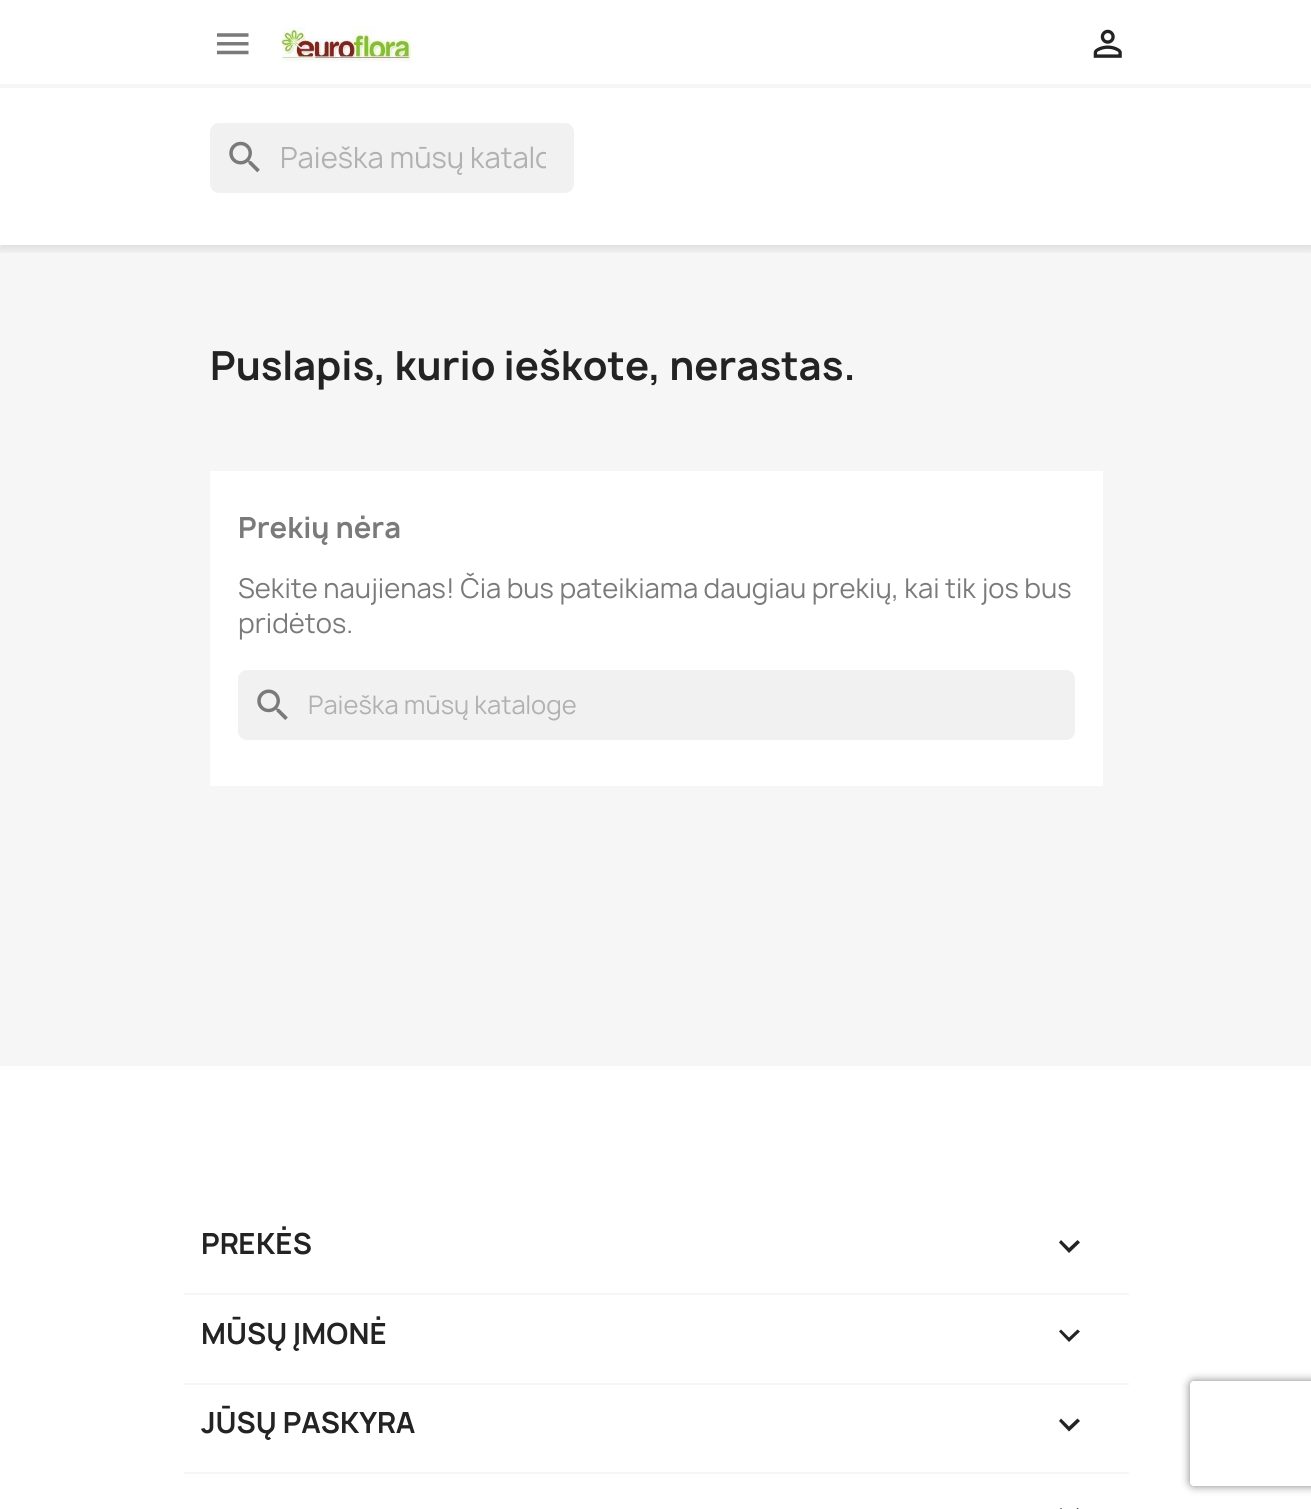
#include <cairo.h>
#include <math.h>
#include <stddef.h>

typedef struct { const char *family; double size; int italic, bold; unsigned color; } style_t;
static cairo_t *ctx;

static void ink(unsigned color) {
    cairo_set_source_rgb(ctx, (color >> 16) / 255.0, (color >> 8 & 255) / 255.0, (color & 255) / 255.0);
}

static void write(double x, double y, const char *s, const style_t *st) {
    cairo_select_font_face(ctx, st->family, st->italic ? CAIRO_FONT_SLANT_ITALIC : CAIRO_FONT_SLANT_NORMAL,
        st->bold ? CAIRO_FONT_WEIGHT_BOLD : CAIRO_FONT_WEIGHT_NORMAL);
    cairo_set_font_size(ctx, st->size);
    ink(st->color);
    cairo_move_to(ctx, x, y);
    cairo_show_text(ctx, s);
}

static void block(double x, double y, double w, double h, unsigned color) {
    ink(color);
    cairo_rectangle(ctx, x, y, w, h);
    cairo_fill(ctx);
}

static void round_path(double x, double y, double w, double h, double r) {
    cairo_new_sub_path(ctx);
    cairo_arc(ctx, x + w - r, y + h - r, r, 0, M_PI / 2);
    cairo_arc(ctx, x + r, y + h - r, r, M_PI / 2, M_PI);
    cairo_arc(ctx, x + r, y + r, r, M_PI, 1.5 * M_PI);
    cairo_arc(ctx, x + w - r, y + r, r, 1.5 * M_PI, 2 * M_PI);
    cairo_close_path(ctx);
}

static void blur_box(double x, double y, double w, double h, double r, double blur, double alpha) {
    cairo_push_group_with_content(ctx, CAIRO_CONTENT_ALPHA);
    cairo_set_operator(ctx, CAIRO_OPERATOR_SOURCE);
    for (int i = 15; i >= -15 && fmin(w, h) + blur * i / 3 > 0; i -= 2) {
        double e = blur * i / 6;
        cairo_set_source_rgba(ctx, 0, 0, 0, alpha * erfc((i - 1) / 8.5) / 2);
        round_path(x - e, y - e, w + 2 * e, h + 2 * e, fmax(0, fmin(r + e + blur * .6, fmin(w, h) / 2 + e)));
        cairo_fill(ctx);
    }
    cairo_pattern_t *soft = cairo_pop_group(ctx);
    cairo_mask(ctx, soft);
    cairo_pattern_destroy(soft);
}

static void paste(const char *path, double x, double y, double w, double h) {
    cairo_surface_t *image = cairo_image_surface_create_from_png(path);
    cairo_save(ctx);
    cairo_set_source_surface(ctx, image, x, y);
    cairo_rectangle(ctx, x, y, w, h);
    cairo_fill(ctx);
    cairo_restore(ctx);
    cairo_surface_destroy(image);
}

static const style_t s1 = {"Manrope", 28, 0, 0, 0xb1b1b1};
static const style_t s2 = {"Manrope", 38.5, 0, 1, 0x232323};
static const style_t s3 = {"Manrope", 28, 0, 1, 0x7a7a7a};
static const style_t s4 = {"Manrope", 26.25, 0, 0, 0x7a7a7a};
static const style_t s5 = {"Manrope", 24.5, 0, 0, 0xb1b1b1};
static const style_t s6 = {"Manrope", 28, 0, 1, 0x232323};

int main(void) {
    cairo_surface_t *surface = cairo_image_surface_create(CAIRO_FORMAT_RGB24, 1311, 1509);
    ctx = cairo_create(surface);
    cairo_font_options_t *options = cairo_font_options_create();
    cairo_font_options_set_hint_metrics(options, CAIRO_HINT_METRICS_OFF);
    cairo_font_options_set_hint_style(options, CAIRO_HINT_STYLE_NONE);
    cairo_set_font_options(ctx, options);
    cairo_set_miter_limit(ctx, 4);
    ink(0xffffff);
    cairo_paint(ctx);
    block(0, 245, 1311, 821, 0xf6f6f6);
    cairo_save(ctx);
    cairo_rectangle(ctx, 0, 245, 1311, 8);
    cairo_clip(ctx);
    ink(0x000000);
    blur_box(0, 4, 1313, 245, 0, 4.5, 0.11);
    cairo_restore(ctx);
    block(0, 84, 1311, 4, 0xf6f6f6);
    paste("pic1.png", 217, 33, 32, 22);
    paste("pic2.png", 281, 27, 133, 36);
    paste("pic3.png", 1093, 29, 29, 29);
    ink(0xf1f1f1);
    round_path(210, 123, 364, 70, 9);
    cairo_fill(ctx);
    paste("pic4.png", 229, 141, 31, 32);
    cairo_save(ctx);
    cairo_rectangle(ctx, 280, 135, 266, 47);
    cairo_clip(ctx);
    write(280, 168, "Paieška mūsų katalo", &s1);
    cairo_restore(ctx);
    write(210, 380, "Puslapis, kurio ieškote, nerastas.", &s2);
    block(210, 471, 893, 315, 0xffffff);
    write(238, 538, "Prekių nėra", &s3);
    write(238, 598, "Sekite naujienas! Čia bus pateikiama daugiau prekių, kai tik jos bus", &s4);
    write(238, 633, "pridėtos.", &s4);
    ink(0xf1f1f1);
    round_path(238, 670, 837, 70, 9);
    cairo_fill(ctx);
    paste("pic5.png", 257, 689, 31, 31);
    write(308, 714, "Paieška mūsų kataloge", &s5);
    block(184, 1293, 945, 2, 0xf6f6f6);
    write(201, 1254, "PREKĖS", &s6);
    cairo_new_path(ctx);
    cairo_move_to(ctx, 1061, 1240);
    cairo_line_to(ctx, 1069, 1248);
    cairo_line_to(ctx, 1077.5, 1240);
    cairo_line_to(ctx, 1080, 1242.5);
    cairo_line_to(ctx, 1069, 1253);
    cairo_line_to(ctx, 1059, 1242.5);
    cairo_close_path(ctx);
    cairo_fill(ctx);
    block(184, 1383, 945, 2, 0xf6f6f6);
    write(201, 1344, "MŪSŲ ĮMONĖ", &s6);
    cairo_new_path(ctx);
    cairo_move_to(ctx, 1061, 1329.5);
    cairo_line_to(ctx, 1069, 1337.5);
    cairo_line_to(ctx, 1077.5, 1329.5);
    cairo_line_to(ctx, 1080, 1331.5);
    cairo_line_to(ctx, 1069, 1342);
    cairo_line_to(ctx, 1059, 1331.5);
    cairo_close_path(ctx);
    cairo_fill(ctx);
    block(184, 1472, 945, 2, 0xf6f6f6);
    write(201, 1433, "JŪSŲ PASKYRA", &s6);
    cairo_new_path(ctx);
    cairo_move_to(ctx, 1061, 1418.5);
    cairo_line_to(ctx, 1069, 1426.5);
    cairo_line_to(ctx, 1077.5, 1418.5);
    cairo_line_to(ctx, 1080, 1421);
    cairo_line_to(ctx, 1069, 1431.5);
    cairo_line_to(ctx, 1059, 1421);
    cairo_close_path(ctx);
    cairo_fill(ctx);
    cairo_new_path(ctx);
    cairo_move_to(ctx, 1061, 1508);
    cairo_line_to(ctx, 1069, 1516);
    cairo_line_to(ctx, 1077.5, 1508);
    cairo_line_to(ctx, 1080, 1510);
    cairo_line_to(ctx, 1069, 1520.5);
    cairo_line_to(ctx, 1059, 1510);
    cairo_close_path(ctx);
    cairo_fill(ctx);
    cairo_save(ctx);
    cairo_set_fill_rule(ctx, CAIRO_FILL_RULE_EVEN_ODD);
    cairo_new_path(ctx);
    cairo_move_to(ctx, 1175, 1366);
    cairo_line_to(ctx, 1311, 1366);
    cairo_line_to(ctx, 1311, 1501);
    cairo_line_to(ctx, 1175, 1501);
    cairo_close_path(ctx);
    cairo_move_to(ctx, 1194, 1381);
    cairo_line_to(ctx, 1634, 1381);
    cairo_curve_to(ctx, 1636, 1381, 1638, 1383, 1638, 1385);
    cairo_line_to(ctx, 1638, 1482);
    cairo_curve_to(ctx, 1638, 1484, 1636, 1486, 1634, 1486);
    cairo_line_to(ctx, 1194, 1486);
    cairo_curve_to(ctx, 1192, 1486, 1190, 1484, 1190, 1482);
    cairo_line_to(ctx, 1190, 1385);
    cairo_curve_to(ctx, 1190, 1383, 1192, 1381, 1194, 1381);
    cairo_close_path(ctx);
    cairo_clip(ctx);
    ink(0x808080);
    blur_box(1190, 1381, 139, 105, 4, 4.5, 1);
    cairo_restore(ctx);
    cairo_surface_write_to_png(surface, "screenshot.png");
    cairo_font_options_destroy(options);
    cairo_destroy(ctx);
    cairo_surface_destroy(surface);
    return 0;
}
